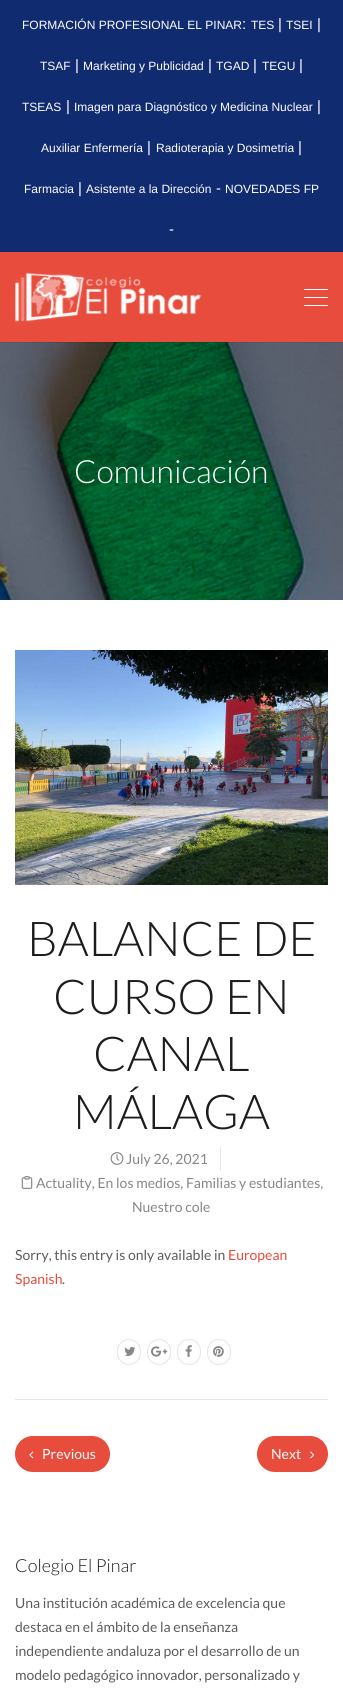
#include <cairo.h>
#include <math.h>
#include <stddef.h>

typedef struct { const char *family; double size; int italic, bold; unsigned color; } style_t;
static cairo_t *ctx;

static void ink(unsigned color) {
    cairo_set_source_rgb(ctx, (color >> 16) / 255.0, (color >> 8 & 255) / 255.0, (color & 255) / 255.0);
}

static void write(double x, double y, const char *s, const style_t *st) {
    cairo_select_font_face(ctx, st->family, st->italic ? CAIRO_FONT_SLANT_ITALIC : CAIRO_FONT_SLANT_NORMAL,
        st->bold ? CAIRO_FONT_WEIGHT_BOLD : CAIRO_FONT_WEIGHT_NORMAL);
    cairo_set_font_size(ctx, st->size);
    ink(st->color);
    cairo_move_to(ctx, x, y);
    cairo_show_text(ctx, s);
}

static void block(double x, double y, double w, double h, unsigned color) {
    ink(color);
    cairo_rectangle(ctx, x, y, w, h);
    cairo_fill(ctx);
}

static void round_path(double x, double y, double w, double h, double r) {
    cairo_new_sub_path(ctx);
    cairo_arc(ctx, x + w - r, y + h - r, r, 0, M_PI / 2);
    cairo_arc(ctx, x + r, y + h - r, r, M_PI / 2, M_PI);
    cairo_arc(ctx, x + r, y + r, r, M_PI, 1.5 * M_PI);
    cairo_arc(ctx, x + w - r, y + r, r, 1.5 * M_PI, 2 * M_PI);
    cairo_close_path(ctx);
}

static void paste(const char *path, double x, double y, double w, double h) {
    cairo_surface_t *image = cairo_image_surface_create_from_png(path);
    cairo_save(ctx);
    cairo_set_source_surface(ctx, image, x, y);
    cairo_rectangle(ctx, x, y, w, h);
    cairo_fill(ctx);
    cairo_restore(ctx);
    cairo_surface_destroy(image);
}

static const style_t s1 = {"Liberation Sans", 12, 0, 0, 0xffffff};
static const style_t s2 = {"Liberation Sans", 15, 0, 0, 0xffffff};
static const style_t s3 = {"Lato Light", 32, 0, 0, 0xffffff};
static const style_t s4 = {"Lato Light", 48, 0, 0, 0x1c1c1c};
static const style_t s5 = {"Lato", 14, 0, 0, 0x878787};
static const style_t s6 = {"Lato", 14, 0, 0, 0x5c5c5c};
static const style_t s7 = {"Lato", 14, 0, 0, 0xe74c3c};
static const style_t s8 = {"Lato", 14, 0, 0, 0xffffff};
static const style_t s9 = {"Lato Light", 18, 0, 0, 0x1c1c1c};

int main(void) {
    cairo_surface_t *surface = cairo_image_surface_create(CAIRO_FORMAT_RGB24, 343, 1693);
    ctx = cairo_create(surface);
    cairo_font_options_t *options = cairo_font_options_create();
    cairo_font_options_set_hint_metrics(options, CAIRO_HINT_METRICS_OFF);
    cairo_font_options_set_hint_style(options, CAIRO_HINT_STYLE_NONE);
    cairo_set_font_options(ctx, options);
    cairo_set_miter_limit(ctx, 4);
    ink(0xffffff);
    cairo_paint(ctx);
    block(0, 0, 343, 252, 0x112b70);
    write(22, 29, "FORMACIÓN PROFESIONAL EL PINAR", &s1);
    write(242, 29, ":", &s2);
    write(251, 29, "TES", &s1);
    write(278, 29, "|", &s2);
    write(286, 29, "TSEI", &s1);
    write(317, 29, "|", &s2);
    write(40, 70, "TSAF", &s1);
    write(75, 70, "|", &s2);
    write(83, 70, "Marketing y Publicidad", &s1);
    write(208, 70, "|", &s2);
    write(216, 70, "TGAD", &s1);
    write(253, 70, "|", &s2);
    write(262, 70, "TEGU", &s1);
    write(299, 70, "|", &s2);
    write(22, 111, "TSEAS", &s1);
    write(66, 111, "|", &s2);
    write(74, 111, "Imagen para Diagnóstico y Medicina Nuclear", &s1);
    write(317, 111, "|", &s2);
    write(41, 152, "Auxiliar Enfermería", &s1);
    write(147, 152, "|", &s2);
    write(156, 152, "Radioterapia y Dosimetria", &s1);
    write(298, 152, "|", &s2);
    write(24, 193, "Farmacia", &s1);
    write(78, 193, "|", &s2);
    write(86, 193, "Asistente a la Dirección", &s1);
    write(216, 193, "-", &s2);
    write(225, 193, "NOVEDADES FP", &s1);
    write(169, 234, "-", &s2);
    paste("pic2.png", 0, 342, 343, 258);
    cairo_set_source_rgba(ctx, 0, 0, 0, 0.06);
    cairo_rectangle(ctx, 0, 342, 343, 1);
    cairo_fill(ctx);
    block(0, 252, 343, 90, 0xe74c3c);
    paste("pic1.png", 15, 272, 187, 59);
    ink(0xffffff);
    round_path(304, 289, 24, 1, 0.5);
    cairo_fill(ctx);
    round_path(304, 297, 24, 1, 0.5);
    cairo_fill(ctx);
    round_path(304, 305, 24, 1, 0.5);
    cairo_fill(ctx);
    write(74, 483, "Comunicación", &s3);
    paste("pic3.png", 15, 650, 313, 235);
    write(27, 956, "BALANCE DE", &s4);
    write(53, 1014, "CURSO EN", &s4);
    write(93, 1071, "CANAL", &s4);
    write(73, 1129, "MÁLAGA", &s4);
    block(220, 1147, 1, 24, 0xe6e6e6);
    paste("pic4.png", 110, 1152, 14, 13);
    write(126, 1164, "July 26, 2021", &s5);
    paste("pic5.png", 21, 1176, 12, 13);
    write(36, 1188, "Actuality, En los medios, Familias y estudiantes,", &s5);
    write(132, 1212, "Nuestro cole", &s5);
    write(15, 1260, "Sorry, this entry is only available in", &s6);
    write(228, 1260, "European", &s7);
    write(15, 1284, "Spanish", &s7);
    write(62, 1284, ".", &s6);
    round_path(117.5, 1339.5, 23, 25, 11.5);
    ink(0xe6e6e6);
    cairo_set_line_width(ctx, 1);
    cairo_stroke(ctx);
    paste("pic6.png", 124, 1347, 12, 9);
    round_path(147.5, 1339.5, 23, 25, 11.5);
    cairo_stroke(ctx);
    paste("pic7.png", 151, 1346, 17, 11);
    round_path(177.5, 1339.5, 23, 25, 11.5);
    cairo_stroke(ctx);
    paste("pic8.png", 185, 1345, 7, 12);
    round_path(207.5, 1339.5, 23, 25, 11.5);
    cairo_stroke(ctx);
    paste("pic9.png", 213, 1346, 11, 11);
    block(15, 1399, 313, 1, 0xe6e6e6);
    ink(0xe74c3c);
    round_path(15, 1436, 95, 36, 18);
    cairo_fill(ctx);
    paste("pic10.png", 29, 1451, 5, 8);
    write(42, 1459, "Previous", &s8);
    ink(0xe74c3c);
    round_path(257, 1436, 71, 36, 18);
    cairo_fill(ctx);
    write(271, 1459, "Next", &s8);
    paste("pic11.png", 310, 1451, 5, 8);
    write(15, 1572, "Colegio El Pinar", &s9);
    write(15, 1608, "Una institución académica de excelencia que", &s6);
    write(15, 1632, "destaca en el ámbito de la enseñanza", &s6);
    write(15, 1656, "independiente andaluza por el desarrollo de un", &s6);
    write(15, 1680, "modelo pedagógico innovador, personalizado y", &s6);
    cairo_surface_write_to_png(surface, "screenshot.png");
    cairo_font_options_destroy(options);
    cairo_destroy(ctx);
    cairo_surface_destroy(surface);
    return 0;
}
